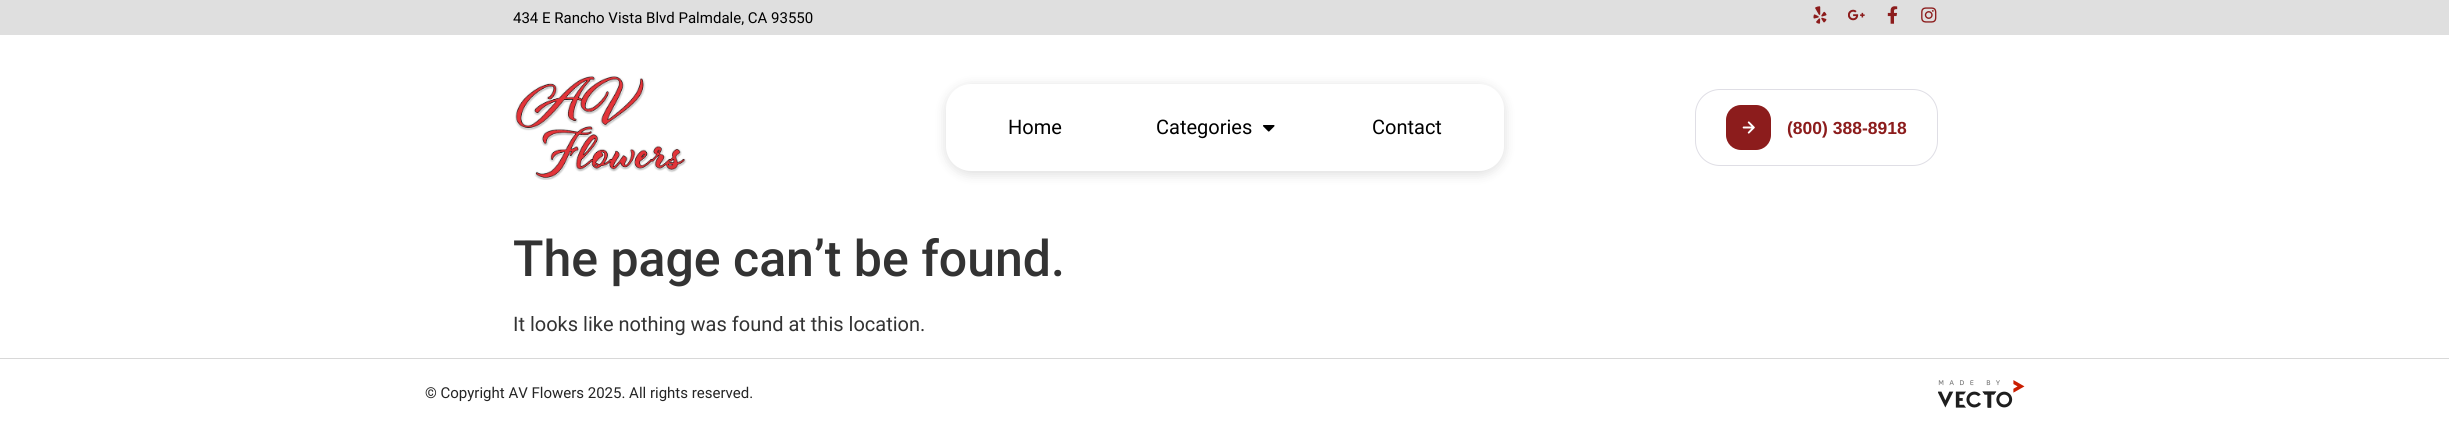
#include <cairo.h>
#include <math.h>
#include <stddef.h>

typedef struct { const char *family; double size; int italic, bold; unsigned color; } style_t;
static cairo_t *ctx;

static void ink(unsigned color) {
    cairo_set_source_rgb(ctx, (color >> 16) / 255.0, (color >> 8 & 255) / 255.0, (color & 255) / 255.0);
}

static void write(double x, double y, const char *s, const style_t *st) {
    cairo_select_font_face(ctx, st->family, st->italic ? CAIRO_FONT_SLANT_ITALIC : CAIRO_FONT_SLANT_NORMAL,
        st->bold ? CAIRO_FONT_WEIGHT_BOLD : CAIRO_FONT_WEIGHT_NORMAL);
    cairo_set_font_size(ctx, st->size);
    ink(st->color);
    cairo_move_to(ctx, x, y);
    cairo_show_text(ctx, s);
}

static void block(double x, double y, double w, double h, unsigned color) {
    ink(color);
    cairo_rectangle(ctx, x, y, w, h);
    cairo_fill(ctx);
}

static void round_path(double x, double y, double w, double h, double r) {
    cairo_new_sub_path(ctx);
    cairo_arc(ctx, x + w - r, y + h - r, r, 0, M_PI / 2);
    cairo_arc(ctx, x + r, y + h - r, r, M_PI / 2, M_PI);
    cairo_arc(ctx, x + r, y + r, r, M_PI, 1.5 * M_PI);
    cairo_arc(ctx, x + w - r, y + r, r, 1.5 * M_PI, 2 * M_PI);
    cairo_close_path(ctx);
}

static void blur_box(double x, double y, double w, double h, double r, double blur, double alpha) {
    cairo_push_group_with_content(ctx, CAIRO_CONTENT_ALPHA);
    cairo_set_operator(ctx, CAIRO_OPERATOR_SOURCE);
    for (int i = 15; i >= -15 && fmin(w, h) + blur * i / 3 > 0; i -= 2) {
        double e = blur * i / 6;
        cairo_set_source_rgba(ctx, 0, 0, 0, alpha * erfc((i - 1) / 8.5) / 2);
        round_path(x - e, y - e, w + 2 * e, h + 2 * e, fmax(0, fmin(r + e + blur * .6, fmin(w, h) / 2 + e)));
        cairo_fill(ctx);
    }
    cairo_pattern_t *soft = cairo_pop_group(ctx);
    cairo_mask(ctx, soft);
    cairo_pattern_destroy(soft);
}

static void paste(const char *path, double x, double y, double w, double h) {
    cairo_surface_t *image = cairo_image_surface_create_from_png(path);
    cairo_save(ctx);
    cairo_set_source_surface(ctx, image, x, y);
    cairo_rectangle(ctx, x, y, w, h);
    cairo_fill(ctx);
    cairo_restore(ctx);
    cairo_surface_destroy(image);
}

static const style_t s1 = {"Roboto", 15, 0, 0, 0x000000};
static const style_t s2 = {"Roboto", 20, 0, 0, 0x000000};
static const style_t s3 = {"Liberation Sans", 17.5, 0, 1, 0x8c1c1c};
static const style_t s4 = {"Roboto Medium", 50, 0, 0, 0x333333};
static const style_t s5 = {"Roboto", 20, 0, 0, 0x333333};
static const style_t s6 = {"Roboto", 15, 0, 0, 0x242424};

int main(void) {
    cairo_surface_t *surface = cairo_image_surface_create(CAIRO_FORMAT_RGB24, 2449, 431);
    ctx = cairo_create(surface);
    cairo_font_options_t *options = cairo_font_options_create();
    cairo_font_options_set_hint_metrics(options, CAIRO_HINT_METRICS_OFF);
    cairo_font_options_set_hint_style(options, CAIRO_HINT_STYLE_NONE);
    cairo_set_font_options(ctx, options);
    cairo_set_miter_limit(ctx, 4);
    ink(0xffffff);
    cairo_paint(ctx);
    block(0, 0, 2449, 35, 0xdfdfdf);
    write(513, 23, "434 E Rancho Vista Blvd Palmdale, CA 93550", &s1);
    paste("pic1.png", 1813, 6, 14, 18);
    paste("pic2.png", 1848, 9, 17, 12);
    paste("pic3.png", 1887, 6, 11, 18);
    paste("pic4.png", 1921, 7, 16, 16);
    paste("pic5.png", 515, 75, 172, 105);
    ink(0x000000);
    blur_box(946, 86, 558, 88, 25, 6, 0.14);
    ink(0xffffff);
    round_path(946, 84, 558, 87, 25);
    cairo_fill(ctx);
    write(1008, 134, "Home", &s2);
    write(1156, 134, "Categories", &s2);
    paste("pic6.png", 1263, 125, 12, 7);
    write(1372, 134, "Contact", &s2);
    round_path(1695.5, 89.5, 242, 76, 24.5);
    ink(0xdfdee5);
    cairo_set_line_width(ctx, 1);
    cairo_stroke(ctx);
    ink(0x8c1c1c);
    round_path(1726, 105, 45, 45, 15);
    cairo_fill(ctx);
    paste("pic7.png", 1742, 121, 13, 13);
    write(1787, 134, "(800) 388-8918", &s3);
    write(513, 276, "The page can’t be found.", &s4);
    write(513, 331, "It looks like nothing was found at this location.", &s5);
    block(0, 358, 2449, 1, 0xd8d8d8);
    write(425, 398, "© Copyright AV Flowers 2025. All rights reserved.", &s6);
    paste("pic8.png", 1938, 380, 87, 28);
    cairo_surface_write_to_png(surface, "screenshot.png");
    cairo_font_options_destroy(options);
    cairo_destroy(ctx);
    cairo_surface_destroy(surface);
    return 0;
}
